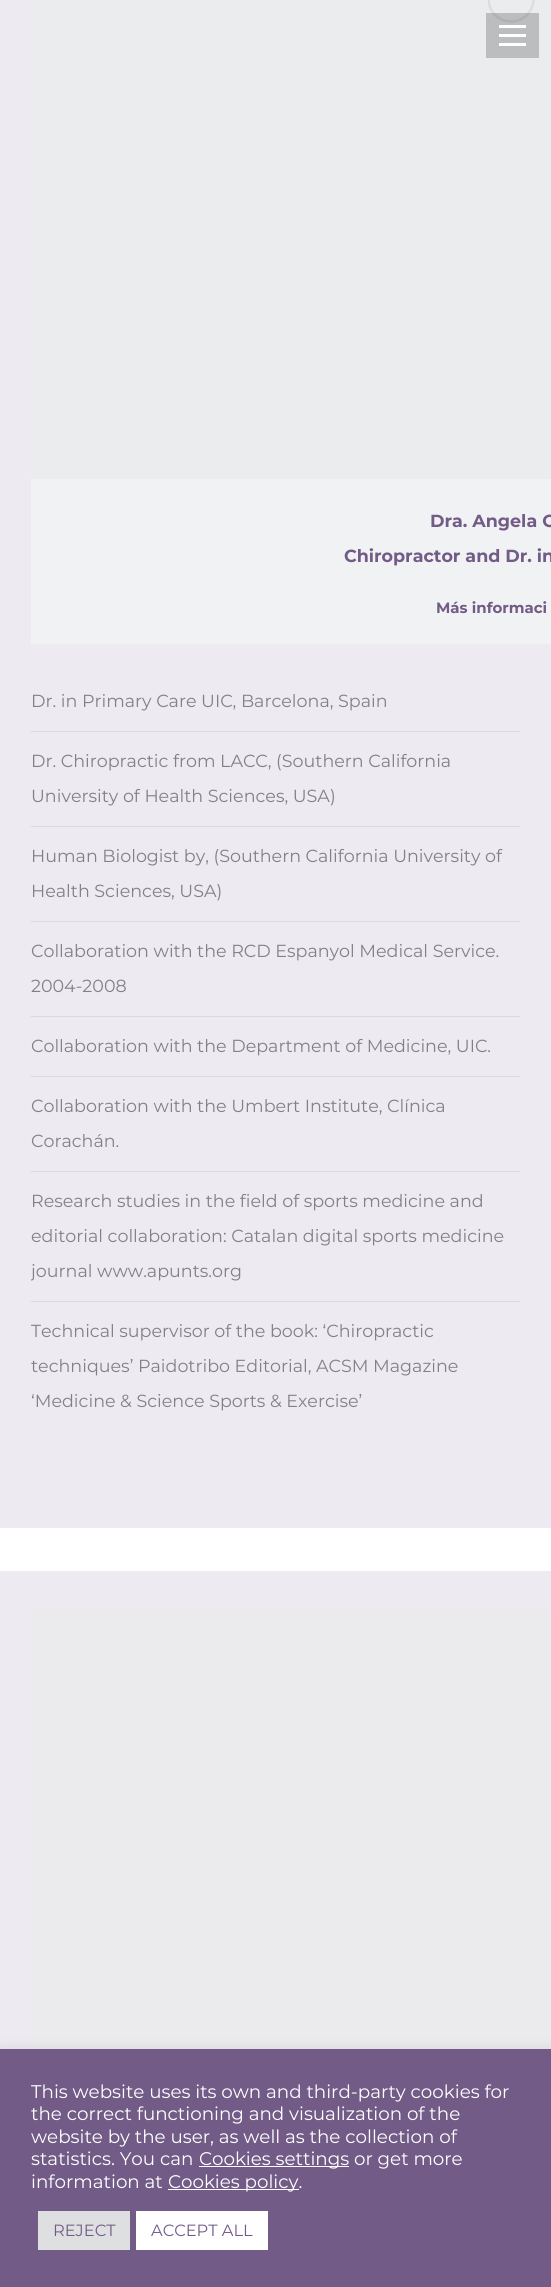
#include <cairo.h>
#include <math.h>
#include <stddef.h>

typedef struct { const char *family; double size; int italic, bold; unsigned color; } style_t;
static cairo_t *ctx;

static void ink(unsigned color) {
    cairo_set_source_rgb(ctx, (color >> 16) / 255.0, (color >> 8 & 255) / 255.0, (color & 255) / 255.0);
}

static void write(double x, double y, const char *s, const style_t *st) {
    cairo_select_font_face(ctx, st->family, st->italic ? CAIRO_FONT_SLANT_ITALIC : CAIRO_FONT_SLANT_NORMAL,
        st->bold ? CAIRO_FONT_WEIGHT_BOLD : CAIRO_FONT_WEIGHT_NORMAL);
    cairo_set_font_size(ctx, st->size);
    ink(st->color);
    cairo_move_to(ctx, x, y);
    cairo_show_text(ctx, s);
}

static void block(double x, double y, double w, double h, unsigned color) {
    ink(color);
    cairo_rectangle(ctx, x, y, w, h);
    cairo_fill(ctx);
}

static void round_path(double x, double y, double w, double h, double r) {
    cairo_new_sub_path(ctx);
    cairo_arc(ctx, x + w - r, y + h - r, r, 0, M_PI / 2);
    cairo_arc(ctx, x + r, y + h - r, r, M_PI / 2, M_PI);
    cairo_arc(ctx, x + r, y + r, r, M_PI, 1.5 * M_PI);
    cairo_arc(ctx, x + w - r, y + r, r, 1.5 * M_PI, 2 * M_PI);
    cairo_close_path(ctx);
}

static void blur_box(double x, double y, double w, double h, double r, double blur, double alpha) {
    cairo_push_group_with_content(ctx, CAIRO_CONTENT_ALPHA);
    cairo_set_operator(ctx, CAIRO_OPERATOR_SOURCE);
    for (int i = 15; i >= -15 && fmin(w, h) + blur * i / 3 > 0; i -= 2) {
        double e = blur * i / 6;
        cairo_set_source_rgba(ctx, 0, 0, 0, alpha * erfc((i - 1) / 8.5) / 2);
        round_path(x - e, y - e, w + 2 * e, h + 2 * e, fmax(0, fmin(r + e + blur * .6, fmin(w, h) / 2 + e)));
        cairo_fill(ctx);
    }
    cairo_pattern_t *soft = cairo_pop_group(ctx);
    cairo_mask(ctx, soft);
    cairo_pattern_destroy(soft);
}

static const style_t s1 = {"Montserrat", 17.5, 0, 1, 0x725b87};
static const style_t s2 = {"Montserrat", 15, 0, 1, 0x725b87};
static const style_t s3 = {"Montserrat", 17.5, 0, 0, 0x828282};
static const style_t s4 = {"Montserrat", 18.3, 0, 0, 0xffffff};
static const style_t s5 = {"Montserrat", 16.25, 0, 0, 0x725b87};

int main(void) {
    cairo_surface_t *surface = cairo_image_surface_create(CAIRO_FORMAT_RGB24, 551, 2287);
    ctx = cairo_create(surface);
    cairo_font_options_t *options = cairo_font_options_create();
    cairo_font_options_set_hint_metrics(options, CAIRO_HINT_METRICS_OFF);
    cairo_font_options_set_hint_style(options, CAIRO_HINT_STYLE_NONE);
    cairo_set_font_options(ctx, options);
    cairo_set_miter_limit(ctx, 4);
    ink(0xffffff);
    cairo_paint(ctx);
    block(0, 0, 551, 1528, 0xedeaf1);
    block(31, 0, 520, 479, 0xebecee);
    cairo_save(ctx);
    cairo_rectangle(ctx, 488, 0, 47, 23);
    cairo_clip(ctx);
    cairo_arc(ctx, 511, -1, 22.5, 0, 2 * M_PI);
    ink(0xdddddf);
    cairo_set_line_width(ctx, 2.5);
    cairo_stroke(ctx);
    cairo_restore(ctx);
    cairo_set_source_rgba(ctx, 0, 0, 0, 0.2);
    cairo_rectangle(ctx, 486, 13, 53, 45);
    cairo_fill(ctx);
    block(499, 25, 27, 3, 0xffffff);
    block(499, 34, 27, 3, 0xffffff);
    block(499, 43, 27, 3, 0xffffff);
    block(31, 479, 520, 165, 0xf1f2f3);
    write(430, 527, "Dra. Angela O", &s1);
    write(344, 562, "Chiropractor and Dr. in", &s1);
    write(436, 613, "Más informaci", &s2);
    write(31, 707, "Dr. in Primary Care UIC, Barcelona, Spain", &s3);
    block(31, 731, 489, 1, 0xdad9df);
    write(31, 767, "Dr. Chiropractic from LACC, (Southern California", &s3);
    write(31, 802, "University of Health Sciences, USA)", &s3);
    block(31, 826, 489, 1, 0xdad9df);
    write(31, 862, "Human Biologist by, (Southern California University of", &s3);
    write(31, 897, "Health Sciences, USA)", &s3);
    block(31, 921, 489, 1, 0xdad9df);
    write(31, 957, "Collaboration with the RCD Espanyol Medical Service.", &s3);
    write(31, 992, "2004-2008", &s3);
    block(31, 1016, 489, 1, 0xdad9df);
    write(31, 1052, "Collaboration with the Department of Medicine, UIC.", &s3);
    block(31, 1076, 489, 1, 0xdad9df);
    write(31, 1112, "Collaboration with the Umbert Institute, Clínica", &s3);
    write(31, 1147, "Corachán.", &s3);
    block(31, 1171, 489, 1, 0xdad9df);
    write(31, 1207, "Research studies in the field of sports medicine and", &s3);
    write(31, 1242, "editorial collaboration: Catalan digital sports medicine", &s3);
    cairo_save(ctx);
    cairo_rectangle(ctx, 31, 1173, 489, 128);
    cairo_clip(ctx);
    write(31, 1277, "journal www.apunts.org", &s3);
    cairo_restore(ctx);
    block(31, 1301, 489, 1, 0xdad9df);
    write(31, 1337, "Technical supervisor of the book: ‘Chiropractic", &s3);
    write(31, 1372, "techniques’ Paidotribo Editorial, ACSM Magazine", &s3);
    write(31, 1407, "‘Medicine & Science Sports & Exercise’", &s3);
    block(0, 1571, 551, 478, 0xedeaf1);
    block(31, 1609, 520, 440, 0xebebed);
    ink(0xacabab);
    blur_box(0, 2048, 551, 238, 0, 6, 0.3);
    block(0, 2049, 551, 238, 0x725b87);
    write(31, 2098, "This website uses its own and third-party cookies for", &s4);
    write(31, 2120, "the correct functioning and visualization of the", &s4);
    write(31, 2143, "website by the user, as well as the collection of", &s4);
    write(31, 2165, "statistics. You can", &s4);
    block(199, 2166, 150, 1, 0xffffff);
    write(199, 2165, "Cookies settings or get more", &s4);
    write(31, 2188, "information at", &s4);
    block(168, 2189, 131, 1, 0xffffff);
    write(168, 2188, "Cookies policy.", &s4);
    block(38, 2211, 92, 39, 0xdedfe0);
    write(53, 2236, "REJECT", &s5);
    block(136, 2211, 132, 39, 0xffffff);
    write(151, 2236, "ACCEPT ALL", &s5);
    cairo_surface_write_to_png(surface, "screenshot.png");
    cairo_font_options_destroy(options);
    cairo_destroy(ctx);
    cairo_surface_destroy(surface);
    return 0;
}
